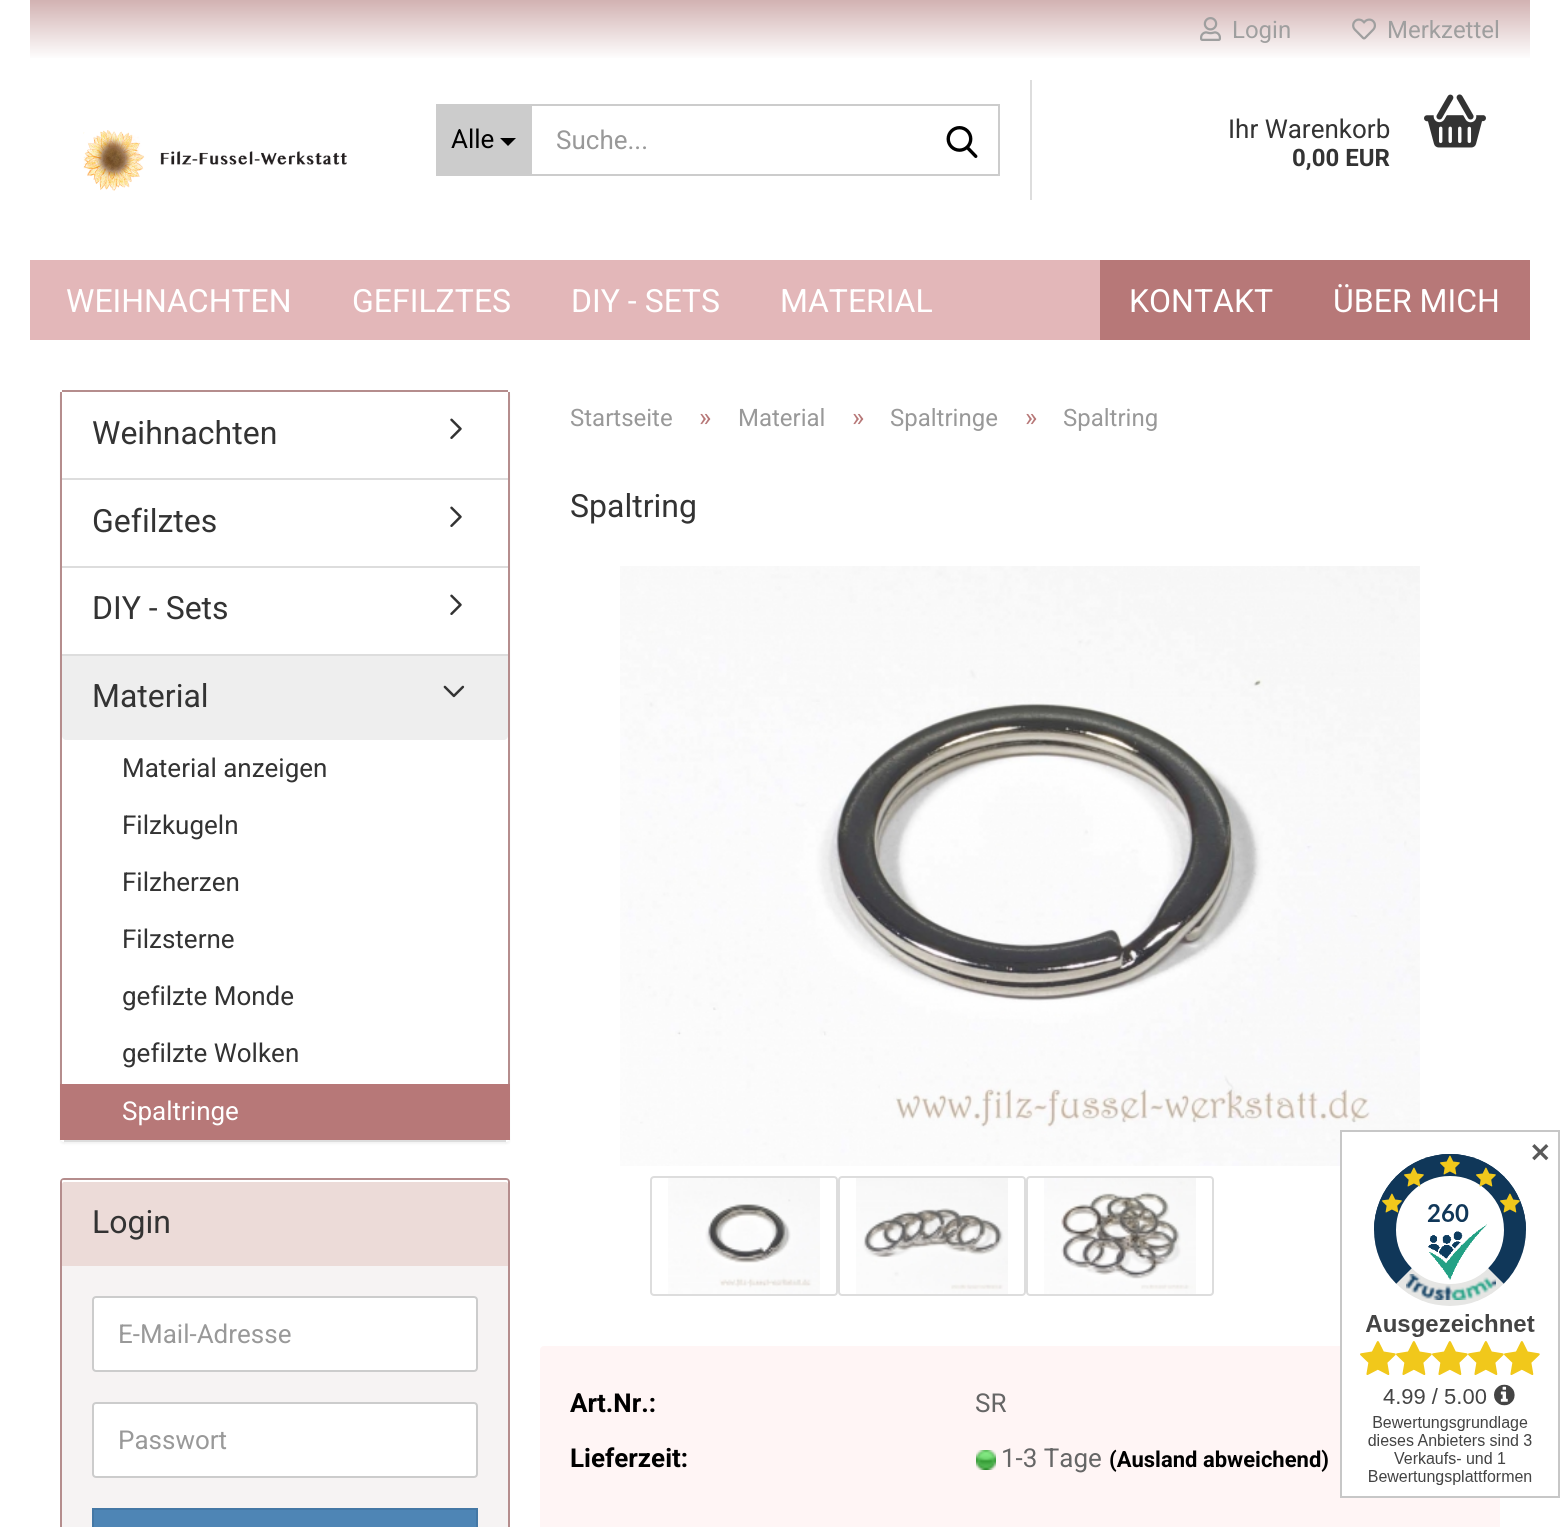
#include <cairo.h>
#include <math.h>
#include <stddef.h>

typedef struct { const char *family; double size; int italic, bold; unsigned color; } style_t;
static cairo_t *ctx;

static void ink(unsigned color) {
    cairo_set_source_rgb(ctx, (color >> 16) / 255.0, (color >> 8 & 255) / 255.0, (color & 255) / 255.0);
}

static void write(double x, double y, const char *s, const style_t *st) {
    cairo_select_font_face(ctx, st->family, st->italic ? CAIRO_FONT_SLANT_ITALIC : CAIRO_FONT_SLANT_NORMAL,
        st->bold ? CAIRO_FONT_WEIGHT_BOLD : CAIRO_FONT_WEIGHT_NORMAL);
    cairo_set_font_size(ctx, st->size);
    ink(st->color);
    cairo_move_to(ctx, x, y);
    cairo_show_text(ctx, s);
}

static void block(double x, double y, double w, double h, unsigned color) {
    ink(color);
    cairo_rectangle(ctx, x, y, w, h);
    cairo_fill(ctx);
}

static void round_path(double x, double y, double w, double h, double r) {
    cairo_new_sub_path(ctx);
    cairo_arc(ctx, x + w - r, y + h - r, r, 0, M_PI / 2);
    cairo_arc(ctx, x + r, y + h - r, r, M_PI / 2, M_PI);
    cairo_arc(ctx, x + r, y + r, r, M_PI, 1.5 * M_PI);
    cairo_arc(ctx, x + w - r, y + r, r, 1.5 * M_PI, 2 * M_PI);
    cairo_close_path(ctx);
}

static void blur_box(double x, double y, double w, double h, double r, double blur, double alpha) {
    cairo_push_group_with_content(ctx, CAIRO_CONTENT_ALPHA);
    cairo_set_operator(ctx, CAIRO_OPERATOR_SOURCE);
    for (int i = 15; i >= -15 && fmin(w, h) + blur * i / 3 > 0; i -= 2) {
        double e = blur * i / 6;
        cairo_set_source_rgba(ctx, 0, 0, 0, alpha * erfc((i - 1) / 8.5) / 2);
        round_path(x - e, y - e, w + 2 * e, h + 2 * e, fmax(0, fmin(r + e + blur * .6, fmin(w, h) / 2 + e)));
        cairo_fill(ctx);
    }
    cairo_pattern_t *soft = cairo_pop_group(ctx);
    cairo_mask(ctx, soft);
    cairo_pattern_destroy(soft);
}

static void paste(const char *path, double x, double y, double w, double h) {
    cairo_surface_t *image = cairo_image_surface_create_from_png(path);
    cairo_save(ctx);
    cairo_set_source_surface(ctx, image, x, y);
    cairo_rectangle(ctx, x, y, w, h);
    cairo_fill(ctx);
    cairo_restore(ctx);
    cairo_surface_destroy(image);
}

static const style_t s1 = {"Roboto", 24, 0, 0, 0x9f9f9f};
static const style_t s2 = {"Roboto", 26, 0, 0, 0x000000};
static const style_t s3 = {"Roboto", 26, 0, 0, 0x999999};
static const style_t s4 = {"Roboto", 26, 0, 0, 0x333333};
static const style_t s5 = {"Roboto", 24, 0, 1, 0x333333};
static const style_t s6 = {"Roboto", 32, 0, 0, 0xffffff};
static const style_t s7 = {"Roboto", 32, 0, 0, 0x333333};
static const style_t s8 = {"Roboto", 26, 0, 0, 0xffffff};
static const style_t s9 = {"Roboto", 24, 0, 0, 0x999999};
static const style_t s10 = {"Roboto", 26, 0, 0, 0xb77878};
static const style_t s11 = {"Roboto", 26, 0, 1, 0x000000};
static const style_t s12 = {"Roboto", 26, 0, 0, 0x666666};
static const style_t s13 = {"Roboto", 22, 0, 1, 0x000000};
static const style_t s14 = {"DejaVu Sans", 26, 0, 1, 0x595959};

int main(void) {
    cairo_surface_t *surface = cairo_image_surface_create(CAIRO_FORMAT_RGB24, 1560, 1527);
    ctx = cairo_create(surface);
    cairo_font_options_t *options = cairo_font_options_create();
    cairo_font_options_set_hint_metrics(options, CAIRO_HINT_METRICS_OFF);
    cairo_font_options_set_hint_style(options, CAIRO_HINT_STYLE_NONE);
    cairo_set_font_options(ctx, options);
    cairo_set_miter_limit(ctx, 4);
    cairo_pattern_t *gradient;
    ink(0xffffff);
    cairo_paint(ctx);
    gradient = cairo_pattern_create_linear(780, 0, 780, 60);
    cairo_pattern_add_color_stop_rgba(gradient, 0, 0.824, 0.698, 0.698, 1);
    cairo_pattern_add_color_stop_rgba(gradient, 1, 1, 1, 1, 1);
    cairo_set_source(ctx, gradient);
    cairo_pattern_destroy(gradient);
    cairo_rectangle(ctx, 30, 0, 1500, 58);
    cairo_fill(ctx);
    paste("pic1.png", 1200, 17, 21, 24);
    write(1232, 38, "Login", &s1);
    paste("pic2.png", 1352, 18, 24, 22);
    write(1387, 38, "Merkzettel", &s1);
    paste("pic3.png", 83, 130, 264, 61);
    block(436, 104, 96, 72, 0xcccccc);
    write(451, 148, "Alle", &s2);
    cairo_new_path(ctx);
    cairo_move_to(ctx, 500, 138);
    cairo_line_to(ctx, 516, 138);
    cairo_line_to(ctx, 508, 146);
    cairo_close_path(ctx);
    cairo_fill(ctx);
    block(532, 104, 468, 2, 0xcccccc);
    block(998, 104, 2, 72, 0xcccccc);
    block(532, 174, 468, 2, 0xcccccc);
    write(556, 149, "Suche...", &s3);
    paste("pic4.png", 946, 126, 32, 32);
    block(1030, 80, 2, 120, 0xdddddd);
    write(1228, 138, "Ihr Warenkorb", &s4);
    write(1292, 166, "0,00 EUR", &s5);
    paste("pic5.png", 1424, 94, 62, 54);
    block(30, 260, 1070, 80, 0xe3b7b9);
    write(66, 312, "WEIHNACHTEN", &s6);
    write(352, 312, "GEFILZTES", &s6);
    write(571, 312, "DIY - SETS", &s6);
    write(780, 312, "MATERIAL", &s6);
    block(1100, 260, 430, 80, 0xb77878);
    write(1129, 312, "KONTAKT", &s6);
    write(1333, 312, "ÜBER MICH", &s6);
    ink(0x000000);
    blur_box(60, 392, 450, 752, 4, 1, 0.05);
    ink(0xffffff);
    round_path(60, 390, 450, 752, 4);
    cairo_fill(ctx);
    block(62, 390, 446, 2, 0xb58d8d);
    block(508, 392, 2, 692, 0xb58d8d);
    block(60, 392, 2, 692, 0xb58d8d);
    block(62, 478, 446, 2, 0xdddddd);
    write(92, 444, "Weihnachten", &s7);
    paste("pic6.png", 450, 418, 12, 21);
    block(62, 566, 446, 2, 0xdddddd);
    write(92, 532, "Gefilztes", &s7);
    paste("pic6.png", 450, 506, 12, 21);
    block(62, 654, 446, 2, 0xdddddd);
    write(92, 619, "DIY - Sets", &s7);
    paste("pic6.png", 450, 594, 12, 21);
    block(64, 1140, 442, 2, 0xdddddd);
    ink(0xeeeeee);
    cairo_new_path(ctx);
    cairo_move_to(ctx, 62, 656);
    cairo_line_to(ctx, 508, 656);
    cairo_line_to(ctx, 508, 736);
    cairo_curve_to(ctx, 508, 738, 506, 740, 504, 740);
    cairo_line_to(ctx, 66, 740);
    cairo_curve_to(ctx, 64, 740, 62, 738, 62, 736);
    cairo_close_path(ctx);
    cairo_fill(ctx);
    write(92, 707, "Material", &s7);
    paste("pic7.png", 443, 685, 22, 13);
    write(122, 777, "Material anzeigen", &s4);
    write(122, 834, "Filzkugeln", &s4);
    write(122, 891, "Filzherzen", &s4);
    write(122, 948, "Filzsterne", &s4);
    write(122, 1005, "gefilzte Monde", &s4);
    write(122, 1062, "gefilzte Wolken", &s4);
    block(60, 1084, 450, 56, 0xb77878);
    write(122, 1120, "Spaltringe", &s8);
    round_path(61, 1179, 448, 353, 3);
    ink(0xb58d8d);
    cairo_stroke(ctx);
    ink(0xecdbd8);
    cairo_new_path(ctx);
    cairo_move_to(ctx, 64, 1180);
    cairo_line_to(ctx, 506, 1180);
    cairo_curve_to(ctx, 507, 1180, 508, 1181, 508, 1182);
    cairo_line_to(ctx, 508, 1266);
    cairo_line_to(ctx, 62, 1266);
    cairo_line_to(ctx, 62, 1182);
    cairo_curve_to(ctx, 62, 1181, 63, 1180, 64, 1180);
    cairo_close_path(ctx);
    cairo_fill(ctx);
    ink(0xffffff);
    cairo_new_path(ctx);
    cairo_move_to(ctx, 64, 1182);
    cairo_line_to(ctx, 506, 1182);
    cairo_curve_to(ctx, 507, 1182, 508, 1183, 508, 1184);
    cairo_curve_to(ctx, 508, 1182, 508, 1180, 506, 1180);
    cairo_line_to(ctx, 63, 1180);
    cairo_line_to(ctx, 62, 1181);
    cairo_line_to(ctx, 62, 1184);
    cairo_curve_to(ctx, 62, 1183, 63, 1182, 64, 1182);
    cairo_close_path(ctx);
    cairo_fill(ctx);
    write(92, 1233, "Login", &s7);
    block(62, 1266, 446, 261, 0xf6f3f3);
    ink(0xffffff);
    round_path(93, 1297, 384, 74, 3);
    cairo_fill_preserve(ctx);
    ink(0xcccccc);
    cairo_stroke(ctx);
    write(118, 1343, "E-Mail-Adresse", &s3);
    ink(0xffffff);
    round_path(93, 1403, 384, 74, 3);
    cairo_fill_preserve(ctx);
    ink(0xcccccc);
    cairo_stroke(ctx);
    write(118, 1449, "Passwort", &s3);
    ink(0x4e85b5);
    cairo_rectangle(ctx, 93, 1509, 384, 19);
    cairo_fill_preserve(ctx);
    ink(0x4578a5);
    cairo_stroke(ctx);
    write(570, 426, "Startseite", &s9);
    write(699, 426, "»", &s10);
    write(738, 426, "Material", &s9);
    write(852, 426, "»", &s10);
    write(890, 426, "Spaltringe", &s9);
    write(1025, 426, "»", &s10);
    write(1063, 426, "Spaltring", &s9);
    write(570, 517, "Spaltring", &s7);
    paste("pic8.png", 620, 566, 800, 600);
    round_path(651, 1177, 186, 118, 3);
    ink(0xdddddd);
    cairo_stroke(ctx);
    paste("pic9.png", 668, 1178, 152, 116);
    round_path(839, 1177, 186, 118, 3);
    cairo_stroke(ctx);
    paste("pic10.png", 856, 1178, 152, 116);
    round_path(1027, 1177, 186, 118, 3);
    cairo_stroke(ctx);
    paste("pic11.png", 1044, 1178, 152, 116);
    ink(0xfff5f5);
    round_path(540, 1346, 960, 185, 4);
    cairo_fill(ctx);
    write(570, 1412, "Art.Nr.:", &s11);
    write(975, 1412, "SR", &s12);
    write(570, 1467, "Lieferzeit:", &s11);
    paste("pic12.png", 976, 1450, 20, 20);
    write(1001, 1467, "1-3 Tage", &s12);
    write(1109, 1467, "(Ausland abweichend)", &s13);
    paste("pic13.png", 1340, 1130, 220, 368);
    write(1529, 1162, "✕", &s14);
    cairo_surface_write_to_png(surface, "screenshot.png");
    cairo_font_options_destroy(options);
    cairo_destroy(ctx);
    cairo_surface_destroy(surface);
    return 0;
}
